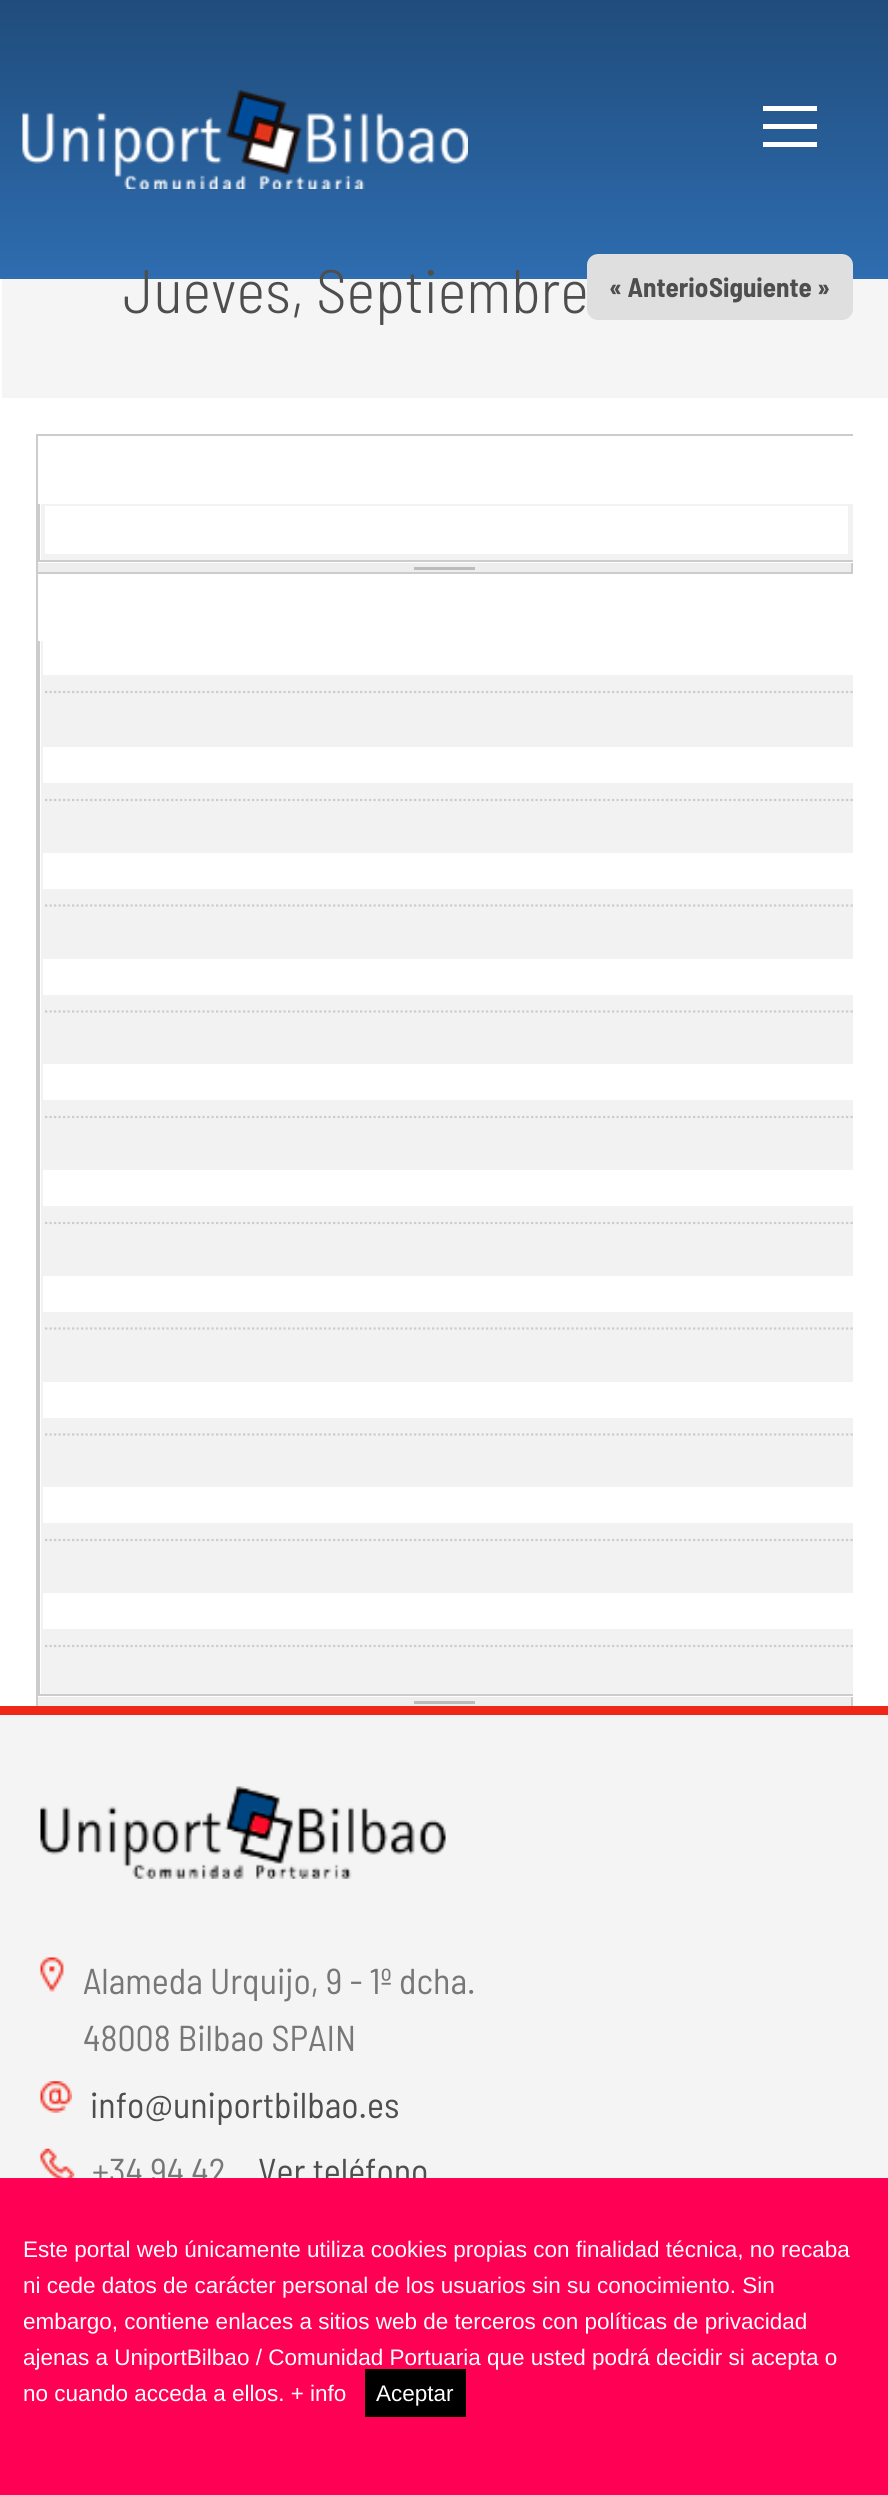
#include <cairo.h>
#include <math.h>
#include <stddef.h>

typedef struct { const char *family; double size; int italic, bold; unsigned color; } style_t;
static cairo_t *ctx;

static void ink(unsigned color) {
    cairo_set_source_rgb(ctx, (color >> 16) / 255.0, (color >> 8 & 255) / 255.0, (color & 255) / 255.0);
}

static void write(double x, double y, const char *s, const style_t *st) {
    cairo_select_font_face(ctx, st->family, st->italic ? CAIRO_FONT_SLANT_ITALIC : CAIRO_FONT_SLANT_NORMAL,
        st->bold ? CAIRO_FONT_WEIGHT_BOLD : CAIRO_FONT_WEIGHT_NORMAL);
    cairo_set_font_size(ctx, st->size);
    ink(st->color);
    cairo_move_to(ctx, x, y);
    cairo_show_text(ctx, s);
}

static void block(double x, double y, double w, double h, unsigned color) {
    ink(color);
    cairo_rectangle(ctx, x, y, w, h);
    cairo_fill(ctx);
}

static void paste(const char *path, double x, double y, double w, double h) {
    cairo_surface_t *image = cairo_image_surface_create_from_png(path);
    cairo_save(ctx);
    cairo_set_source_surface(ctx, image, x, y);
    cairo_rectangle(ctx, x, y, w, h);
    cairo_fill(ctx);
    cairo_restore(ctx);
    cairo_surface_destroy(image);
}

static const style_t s1 = {"Barlow Semi Condensed Light", 61.25, 0, 0, 0x4e4e4e};
static const style_t s2 = {"Barlow Semi Condensed", 27, 0, 1, 0x4e4e4e};
static const style_t s3 = {"Barlow Semi Condensed", 36, 0, 0, 0x777777};
static const style_t s4 = {"Barlow Semi Condensed", 36, 0, 0, 0x4e4e4e};
static const style_t s5 = {"Liberation Sans", 22.5, 0, 0, 0xffffff};

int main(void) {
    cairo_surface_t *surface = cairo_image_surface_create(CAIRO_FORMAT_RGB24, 888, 2495);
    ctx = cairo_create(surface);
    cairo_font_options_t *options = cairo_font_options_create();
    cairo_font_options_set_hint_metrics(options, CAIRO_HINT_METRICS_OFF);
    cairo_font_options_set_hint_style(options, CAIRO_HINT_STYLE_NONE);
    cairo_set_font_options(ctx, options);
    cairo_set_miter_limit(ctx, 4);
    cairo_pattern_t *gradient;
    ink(0xffffff);
    cairo_paint(ctx);
    gradient = cairo_pattern_create_linear(444, 0, 444, 279);
    cairo_pattern_add_color_stop_rgba(gradient, 0, 0.125, 0.298, 0.482, 1);
    cairo_pattern_add_color_stop_rgba(gradient, 1, 0.18, 0.427, 0.69, 1);
    cairo_set_source(ctx, gradient);
    cairo_pattern_destroy(gradient);
    cairo_rectangle(ctx, 0, 0, 888, 279);
    cairo_fill(ctx);
    block(763, 124, 54, 5, 0xffffff);
    block(763, 106, 54, 5, 0xffffff);
    block(763, 142, 54, 5, 0xffffff);
    paste("pic1.png", 22, 90, 446, 99);
    block(2, 279, 886, 119, 0xf5f5f5);
    write(123, 313, "Jueves, Septiembre", &s1);
    ink(0xdfdfdf);
    cairo_new_path(ctx);
    cairo_move_to(ctx, 598, 254);
    cairo_line_to(ctx, 718, 254);
    cairo_line_to(ctx, 718, 320);
    cairo_line_to(ctx, 598, 320);
    cairo_curve_to(ctx, 592, 320, 587, 315, 587, 309);
    cairo_line_to(ctx, 587, 265);
    cairo_curve_to(ctx, 587, 259, 592, 254, 598, 254);
    cairo_close_path(ctx);
    cairo_fill(ctx);
    write(609, 297, "« Anterio", &s2);
    ink(0xdfdfdf);
    cairo_new_path(ctx);
    cairo_move_to(ctx, 709, 254);
    cairo_line_to(ctx, 842, 254);
    cairo_curve_to(ctx, 848, 254, 853, 259, 853, 265);
    cairo_line_to(ctx, 853, 309);
    cairo_curve_to(ctx, 853, 315, 848, 320, 842, 320);
    cairo_line_to(ctx, 709, 320);
    cairo_close_path(ctx);
    cairo_fill(ctx);
    write(709, 297, "Siguiente »", &s2);
    block(36, 434, 817, 2, 0xcccccc);
    block(36, 560, 817, 2, 0xcccccc);
    block(36, 434, 2, 129, 0xcccccc);
    block(41, 504, 812, 56, 0xf2f2f2);
    block(38, 504, 2, 56, 0xcccccc);
    block(45, 506, 803, 48, 0xffffff);
    block(38, 563, 813, 9, 0xeeeeee);
    block(851, 563, 2, 9, 0xcccccc);
    block(36, 563, 2, 9, 0xcccccc);
    block(414, 567, 61, 3, 0xbbbbbb);
    block(36, 572, 817, 2, 0xcccccc);
    block(36, 1694, 817, 2, 0xcccccc);
    block(36, 572, 2, 1125, 0xcccccc);
    block(41, 641, 812, 1053, 0xf2f2f2);
    block(38, 641, 2, 1053, 0xcccccc);
    block(43, 641, 810, 34, 0xffffff);
    cairo_save(ctx);
    cairo_rectangle(ctx, 43, 641, 810, 1053);
    cairo_clip(ctx);
    cairo_new_path(ctx);
    cairo_move_to(ctx, 40.5, 692);
    cairo_line_to(ctx, 853, 692);
    ink(0xcccccc);
    cairo_set_line_width(ctx, 2.2);
    cairo_set_dash(ctx, (double[]){2.25, 2.25}, 2, 0);
    cairo_stroke(ctx);
    cairo_restore(ctx);
    block(43, 747, 810, 36, 0xffffff);
    cairo_save(ctx);
    cairo_rectangle(ctx, 43, 641, 810, 1053);
    cairo_clip(ctx);
    cairo_new_path(ctx);
    cairo_move_to(ctx, 40.5, 800);
    cairo_line_to(ctx, 853, 800);
    ink(0xcccccc);
    cairo_set_line_width(ctx, 2.2);
    cairo_set_dash(ctx, (double[]){2.25, 2.25}, 2, 0);
    cairo_stroke(ctx);
    cairo_restore(ctx);
    block(43, 853, 810, 36, 0xffffff);
    cairo_save(ctx);
    cairo_rectangle(ctx, 43, 641, 810, 1053);
    cairo_clip(ctx);
    cairo_new_path(ctx);
    cairo_move_to(ctx, 40.5, 905.5);
    cairo_line_to(ctx, 853, 905.5);
    ink(0xcccccc);
    cairo_set_line_width(ctx, 2.2);
    cairo_set_dash(ctx, (double[]){2.25, 2.25}, 2, 0);
    cairo_stroke(ctx);
    cairo_restore(ctx);
    block(43, 959, 810, 36, 0xffffff);
    cairo_save(ctx);
    cairo_rectangle(ctx, 43, 641, 810, 1053);
    cairo_clip(ctx);
    cairo_new_path(ctx);
    cairo_move_to(ctx, 40.5, 1011.5);
    cairo_line_to(ctx, 853, 1011.5);
    ink(0xcccccc);
    cairo_set_line_width(ctx, 2.2);
    cairo_set_dash(ctx, (double[]){2.25, 2.25}, 2, 0);
    cairo_stroke(ctx);
    cairo_restore(ctx);
    block(43, 1064, 810, 36, 0xffffff);
    cairo_save(ctx);
    cairo_rectangle(ctx, 43, 641, 810, 1053);
    cairo_clip(ctx);
    cairo_new_path(ctx);
    cairo_move_to(ctx, 40.5, 1117);
    cairo_line_to(ctx, 853, 1117);
    ink(0xcccccc);
    cairo_set_line_width(ctx, 2.2);
    cairo_set_dash(ctx, (double[]){2.25, 2.25}, 2, 0);
    cairo_stroke(ctx);
    cairo_restore(ctx);
    block(43, 1170, 810, 36, 0xffffff);
    cairo_save(ctx);
    cairo_rectangle(ctx, 43, 641, 810, 1053);
    cairo_clip(ctx);
    cairo_new_path(ctx);
    cairo_move_to(ctx, 40.5, 1223);
    cairo_line_to(ctx, 853, 1223);
    ink(0xcccccc);
    cairo_set_line_width(ctx, 2.2);
    cairo_set_dash(ctx, (double[]){2.25, 2.25}, 2, 0);
    cairo_stroke(ctx);
    cairo_restore(ctx);
    block(43, 1276, 810, 36, 0xffffff);
    cairo_save(ctx);
    cairo_rectangle(ctx, 43, 641, 810, 1053);
    cairo_clip(ctx);
    cairo_new_path(ctx);
    cairo_move_to(ctx, 40.5, 1328.5);
    cairo_line_to(ctx, 853, 1328.5);
    ink(0xcccccc);
    cairo_set_line_width(ctx, 2.2);
    cairo_set_dash(ctx, (double[]){2.25, 2.25}, 2, 0);
    cairo_stroke(ctx);
    cairo_restore(ctx);
    block(43, 1382, 810, 36, 0xffffff);
    cairo_save(ctx);
    cairo_rectangle(ctx, 43, 641, 810, 1053);
    cairo_clip(ctx);
    cairo_new_path(ctx);
    cairo_move_to(ctx, 40.5, 1434.5);
    cairo_line_to(ctx, 853, 1434.5);
    ink(0xcccccc);
    cairo_set_line_width(ctx, 2.2);
    cairo_set_dash(ctx, (double[]){2.25, 2.25}, 2, 0);
    cairo_stroke(ctx);
    cairo_restore(ctx);
    block(43, 1487, 810, 36, 0xffffff);
    cairo_save(ctx);
    cairo_rectangle(ctx, 43, 641, 810, 1053);
    cairo_clip(ctx);
    cairo_new_path(ctx);
    cairo_move_to(ctx, 40.5, 1540);
    cairo_line_to(ctx, 853, 1540);
    ink(0xcccccc);
    cairo_set_line_width(ctx, 2.2);
    cairo_set_dash(ctx, (double[]){2.25, 2.25}, 2, 0);
    cairo_stroke(ctx);
    cairo_restore(ctx);
    block(43, 1593, 810, 36, 0xffffff);
    cairo_save(ctx);
    cairo_rectangle(ctx, 43, 641, 810, 1053);
    cairo_clip(ctx);
    cairo_new_path(ctx);
    cairo_move_to(ctx, 40.5, 1646);
    cairo_line_to(ctx, 853, 1646);
    ink(0xcccccc);
    cairo_set_line_width(ctx, 2.2);
    cairo_set_dash(ctx, (double[]){2.25, 2.25}, 2, 0);
    cairo_stroke(ctx);
    cairo_restore(ctx);
    block(38, 1697, 813, 9, 0xeeeeee);
    block(851, 1697, 2, 9, 0xcccccc);
    block(36, 1697, 2, 9, 0xcccccc);
    block(414, 1701, 61, 3, 0xbbbbbb);
    block(0, 1715, 888, 463, 0xf4f4f4);
    block(0, 1706, 888, 9, 0xef2718);
    paste("pic2.png", 40, 1786, 406, 93);
    paste("pic3.png", 40, 1957, 24, 35);
    write(83, 1994, "Alameda Urquijo, 9 - 1º dcha.", &s3);
    write(83, 2051, "48008 Bilbao SPAIN", &s3);
    paste("pic4.png", 40, 2081, 32, 32);
    write(90, 2118, "info@uniportbilbao.es", &s4);
    paste("pic5.png", 40, 2148, 35, 30);
    write(92, 2184, "+34 94 42", &s3);
    write(258, 2184, "Ver teléfono", &s4);
    block(0, 2178, 888, 317, 0xff0054);
    write(23, 2257, "Este portal web únicamente utiliza cookies propias con finalidad técnica, no recaba", &s5);
    write(23, 2293, "ni cede datos de carácter personal de los usuarios sin su conocimiento. Sin", &s5);
    write(23, 2329, "embargo, contiene enlaces a sitios web de terceros con políticas de privacidad", &s5);
    write(23, 2365, "ajenas a UniportBilbao / Comunidad Portuaria que usted podrá decidir si acepta o", &s5);
    write(23, 2401, "no cuando acceda a ellos. + info", &s5);
    block(365, 2369, 101, 48, 0x000000);
    write(376, 2401, "Aceptar", &s5);
    cairo_surface_write_to_png(surface, "screenshot.png");
    cairo_font_options_destroy(options);
    cairo_destroy(ctx);
    cairo_surface_destroy(surface);
    return 0;
}
